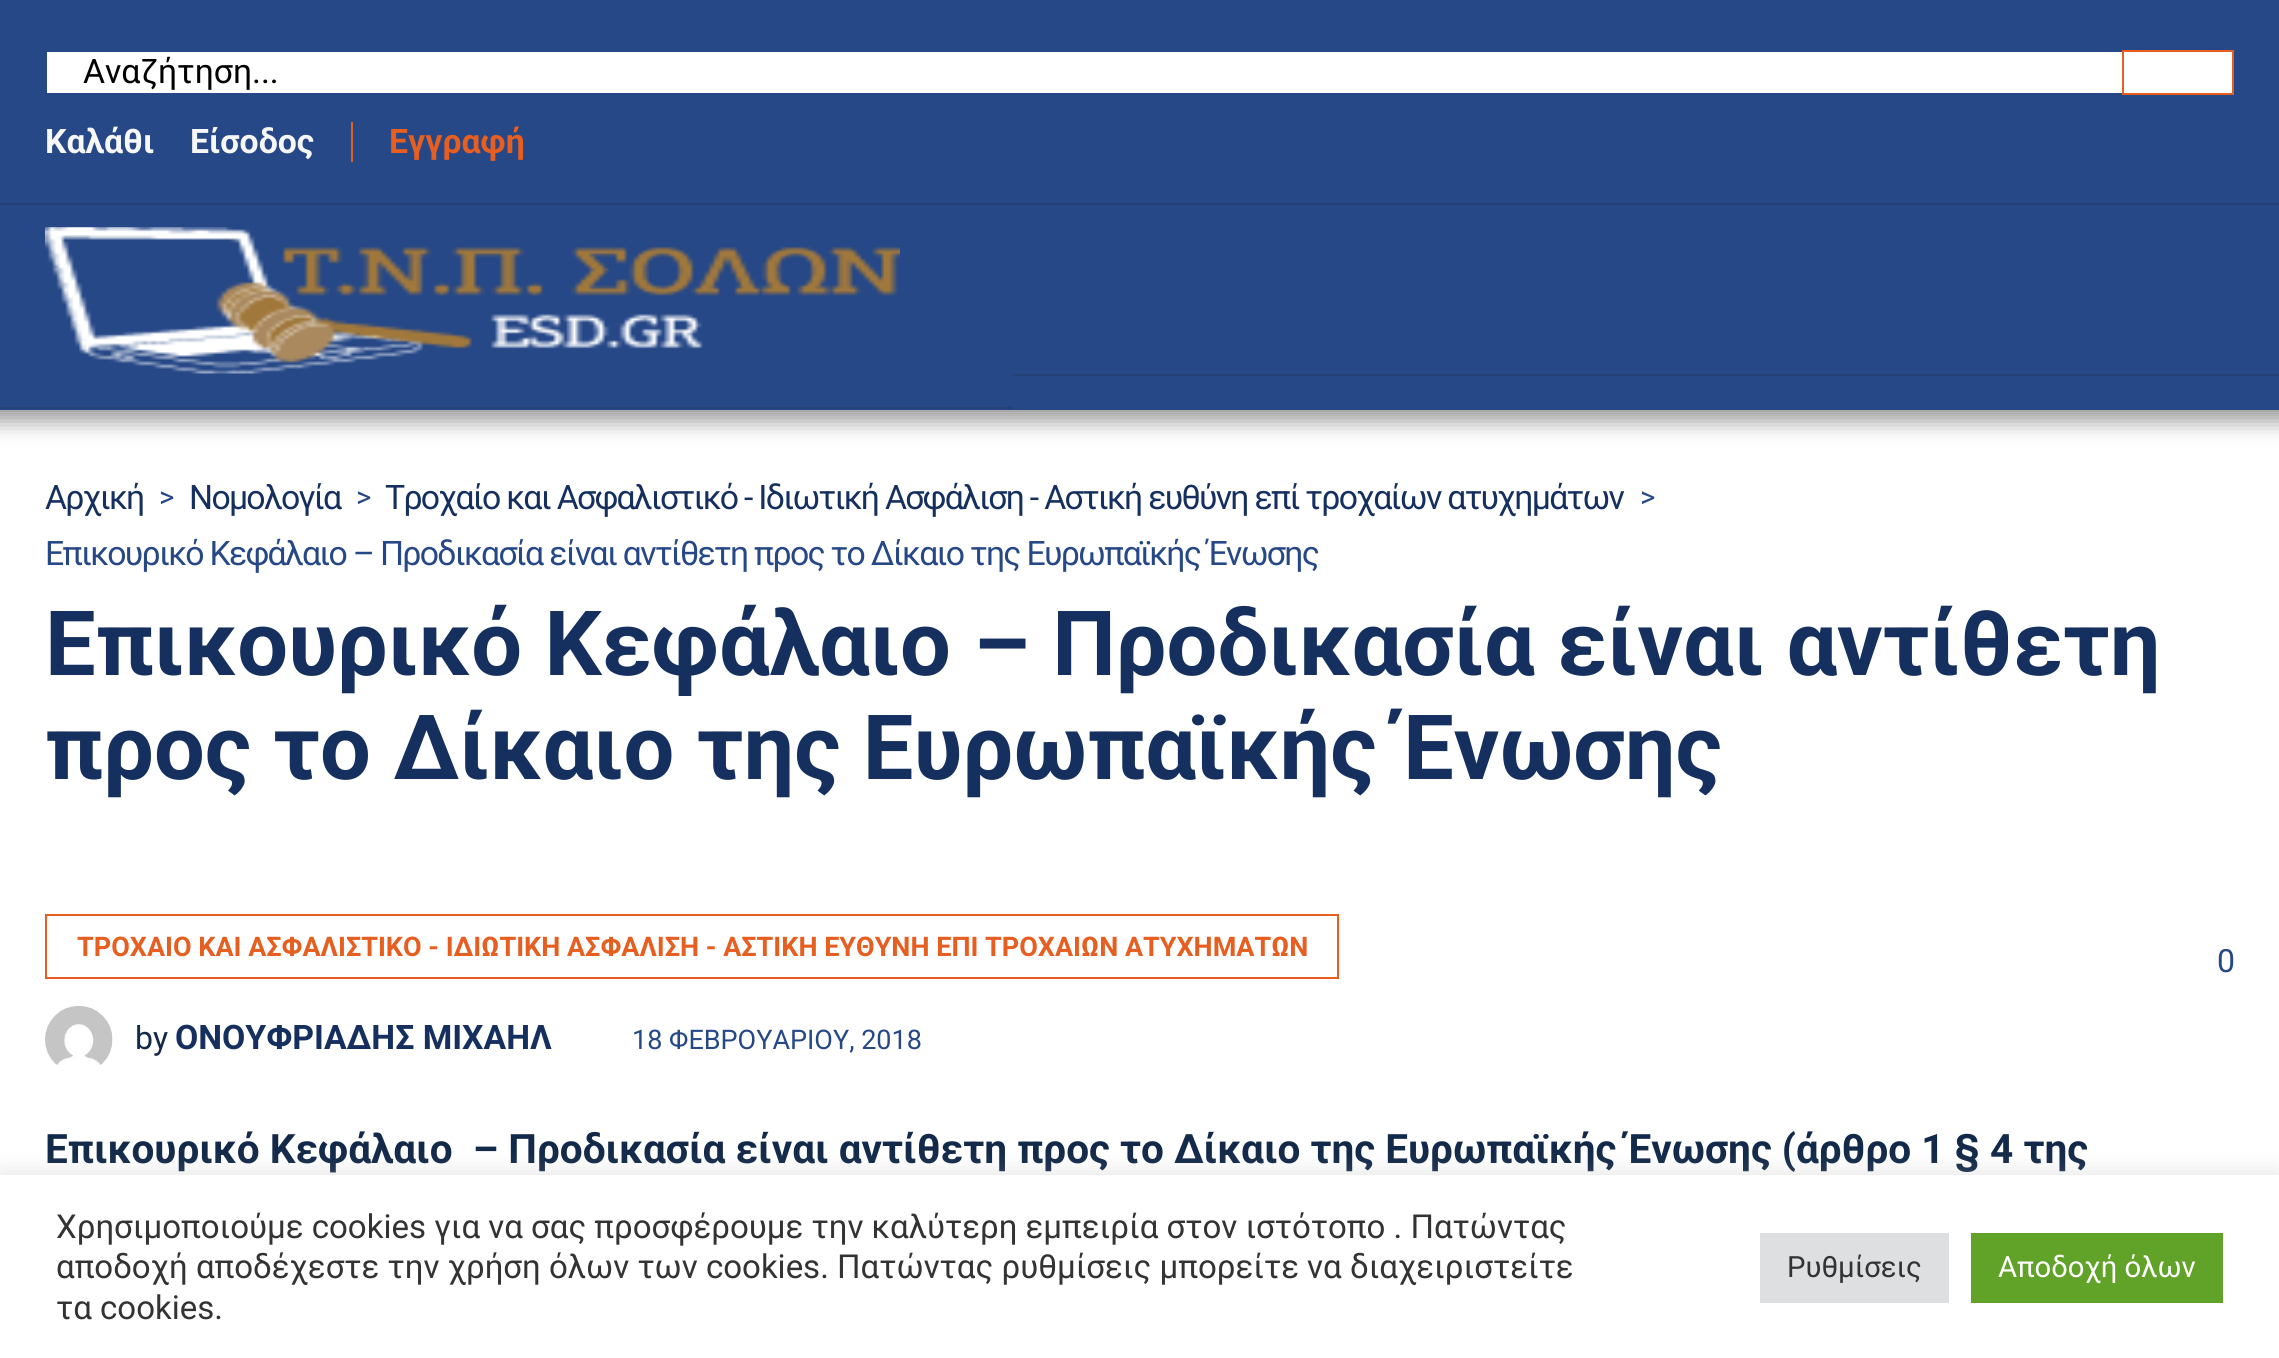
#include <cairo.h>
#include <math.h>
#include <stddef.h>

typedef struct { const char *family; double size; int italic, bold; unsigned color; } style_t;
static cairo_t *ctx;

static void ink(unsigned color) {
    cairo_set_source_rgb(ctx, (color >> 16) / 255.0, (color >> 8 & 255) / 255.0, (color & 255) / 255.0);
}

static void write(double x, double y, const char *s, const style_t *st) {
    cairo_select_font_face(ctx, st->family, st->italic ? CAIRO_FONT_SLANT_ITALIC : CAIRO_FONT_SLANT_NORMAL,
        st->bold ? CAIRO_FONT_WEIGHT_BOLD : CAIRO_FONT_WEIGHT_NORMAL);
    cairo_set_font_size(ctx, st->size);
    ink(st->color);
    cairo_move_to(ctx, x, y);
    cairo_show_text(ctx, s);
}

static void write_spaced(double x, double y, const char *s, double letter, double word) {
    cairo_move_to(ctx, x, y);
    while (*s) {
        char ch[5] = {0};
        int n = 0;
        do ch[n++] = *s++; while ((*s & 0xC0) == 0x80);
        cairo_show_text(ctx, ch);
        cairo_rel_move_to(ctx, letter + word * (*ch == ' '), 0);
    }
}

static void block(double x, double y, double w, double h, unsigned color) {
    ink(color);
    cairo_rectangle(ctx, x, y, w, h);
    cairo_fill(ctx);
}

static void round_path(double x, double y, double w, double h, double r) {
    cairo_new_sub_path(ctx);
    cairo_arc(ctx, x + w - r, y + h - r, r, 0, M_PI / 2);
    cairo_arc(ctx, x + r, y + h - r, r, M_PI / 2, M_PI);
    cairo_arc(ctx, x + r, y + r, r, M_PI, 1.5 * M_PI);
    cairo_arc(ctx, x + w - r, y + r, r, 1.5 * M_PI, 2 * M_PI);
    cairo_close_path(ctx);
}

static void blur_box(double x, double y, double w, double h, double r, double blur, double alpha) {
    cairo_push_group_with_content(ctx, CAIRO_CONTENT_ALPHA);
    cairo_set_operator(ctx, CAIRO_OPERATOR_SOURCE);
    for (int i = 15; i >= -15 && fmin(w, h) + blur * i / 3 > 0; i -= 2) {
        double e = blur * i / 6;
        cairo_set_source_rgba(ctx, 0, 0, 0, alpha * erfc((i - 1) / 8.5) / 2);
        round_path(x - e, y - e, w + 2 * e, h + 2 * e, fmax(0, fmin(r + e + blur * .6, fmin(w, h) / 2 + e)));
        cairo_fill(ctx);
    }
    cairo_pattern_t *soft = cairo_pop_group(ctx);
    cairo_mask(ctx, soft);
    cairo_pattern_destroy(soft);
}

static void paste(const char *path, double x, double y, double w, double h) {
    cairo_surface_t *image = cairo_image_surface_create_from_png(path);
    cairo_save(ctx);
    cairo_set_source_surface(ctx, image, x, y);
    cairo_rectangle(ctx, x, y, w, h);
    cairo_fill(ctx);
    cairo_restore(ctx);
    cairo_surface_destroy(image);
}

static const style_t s1 = {"Roboto", 33.75, 0, 0, 0x000000};
static const style_t s2 = {"Roboto", 33.75, 0, 1, 0xf7f7f7};
static const style_t s3 = {"Roboto", 33.75, 0, 1, 0xe65e20};
static const style_t s4 = {"Roboto", 90, 0, 1, 0x15305f};
static const style_t s5 = {"Roboto", 27, 0, 1, 0xe65e20};
static const style_t s6 = {"Roboto", 32, 0, 0, 0x264887};
static const style_t s7 = {"Roboto", 32, 0, 0, 0x122949};
static const style_t s8 = {"Roboto", 33.75, 0, 1, 0x15305f};
static const style_t s9 = {"Roboto", 27, 0, 0, 0x264887};
static const style_t s10 = {"Roboto", 40.5, 0, 1, 0x122949};
static const style_t s11 = {"Roboto", 33, 0, 0, 0x333333};
static const style_t s12 = {"Roboto", 29.25, 0, 0, 0x333333};
static const style_t s13 = {"Roboto", 29.25, 0, 0, 0xffffff};

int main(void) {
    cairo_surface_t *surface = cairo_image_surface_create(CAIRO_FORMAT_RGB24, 2279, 1358);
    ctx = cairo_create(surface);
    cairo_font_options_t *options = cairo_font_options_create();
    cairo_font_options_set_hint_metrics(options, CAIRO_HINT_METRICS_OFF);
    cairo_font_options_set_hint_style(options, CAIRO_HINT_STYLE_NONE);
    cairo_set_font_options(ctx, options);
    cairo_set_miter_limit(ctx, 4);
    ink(0xffffff);
    cairo_paint(ctx);
    ink(0x000000);
    blur_box(-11, -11, 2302, 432, 0, 11, 0.4);
    block(0, 0, 2279, 203, 0x264887);
    block(0, 203, 2279, 2, 0x254278);
    block(47, 52, 2075, 41, 0xffffff);
    write(83, 83, "Αναζήτηση...", &s1);
    ink(0xffffff);
    cairo_rectangle(ctx, 2123, 51, 110, 43);
    cairo_fill_preserve(ctx);
    ink(0xe65e20);
    cairo_stroke(ctx);
    write(45, 153, "Καλάθι", &s2);
    write(190, 153, "Είσοδος", &s2);
    write(389, 153, "Εγγραφή", &s3);
    block(351, 122, 2, 40, 0xe65e20);
    block(0, 205, 2279, 205, 0x264887);
    block(0, 407, 1013, 2, 0x254278);
    paste("pic1.png", 45, 227, 855, 147);
    block(1013, 374, 1266, 2, 0x254278);
    cairo_select_font_face(ctx, "Roboto", CAIRO_FONT_SLANT_NORMAL, CAIRO_FONT_WEIGHT_NORMAL);
    ink(0x15305f);
    write_spaced(45, 509, "Αρχική", -1.7, 0);
    cairo_set_font_size(ctx, 29.25);
    ink(0x264887);
    write_spaced(159, 507, ">", -1.7, 0);
    cairo_set_font_size(ctx, 33.75);
    ink(0x15305f);
    write_spaced(189, 509, "Νομολογία", -1.7, 0);
    cairo_set_font_size(ctx, 29.25);
    ink(0x264887);
    write_spaced(356, 507, ">", -1.7, 0);
    cairo_set_font_size(ctx, 33.75);
    ink(0x15305f);
    write_spaced(385, 509, "Τροχαίο και Ασφαλιστικό - Ιδιωτική Ασφάλιση - Αστική ευθύνη επί τροχαίων ατυχημάτων", -1.7, 0);
    cairo_set_font_size(ctx, 29.25);
    ink(0x264887);
    write_spaced(1640, 507, ">", -1.7, 0);
    cairo_set_font_size(ctx, 33.75);
    write_spaced(45, 565, "Επικουρικό Κεφάλαιο – Προδικασία είναι αντίθετη προς το Δίκαιο της Ευρωπαϊκής Ένωσης", -1.7, 0);
    write(45, 675, "Επικουρικό Κεφάλαιο – Προδικασία είναι αντίθετη", &s4);
    write(45, 779, "προς το Δίκαιο της Ευρωπαϊκής Ένωσης", &s4);
    cairo_rectangle(ctx, 46, 915, 1292, 63);
    ink(0xe65e20);
    cairo_stroke(ctx);
    write(77, 956, "ΤΡΟΧΑΙΟ ΚΑΙ ΑΣΦΑΛΙΣΤΙΚΟ - ΙΔΙΩΤΙΚΗ ΑΣΦΑΛΙΣΗ - ΑΣΤΙΚΗ ΕΥΘΥΝΗ ΕΠΙ ΤΡΟΧΑΙΩΝ ΑΤΥΧΗΜΑΤΩΝ", &s5);
    write(2217, 972, "0", &s6);
    paste("pic2.png", 45, 1006, 68, 59);
    write(135, 1049, "by", &s7);
    write(175, 1049, "ΟΝΟΥΦΡΙΑΔΗΣ ΜΙΧΑΗΛ", &s8);
    write(632, 1049, "18 ΦΕΒΡΟΥΑΡΙΟΥ, 2018", &s9);
    write(45, 1163, "Επικουρικό Κεφάλαιο  – Προδικασία είναι αντίθετη προς το Δίκαιο της Ευρωπαϊκής Ένωσης (άρθρο 1 § 4 της", &s10);
    ink(0xacabab);
    blur_box(0, 1172, 2279, 185, 0, 11, 0.3);
    block(0, 1175, 2279, 183, 0xffffff);
    write(56, 1238, "Χρησιμοποιούμε cookies για να σας προσφέρουμε την καλύτερη εμπειρία στον ιστότοπο . Πατώντας", &s11);
    write(56, 1278, "αποδοχή αποδέχεστε την χρήση όλων των cookies. Πατώντας ρυθμίσεις μπορείτε να διαχειριστείτε", &s11);
    write(56, 1319, "τα cookies.", &s11);
    block(1760, 1233, 189, 70, 0xdedfe0);
    write(1787, 1277, "Ρυθμίσεις", &s12);
    block(1971, 1233, 252, 70, 0x61a229);
    write(1998, 1277, "Αποδοχή όλων", &s13);
    cairo_surface_write_to_png(surface, "screenshot.png");
    cairo_font_options_destroy(options);
    cairo_destroy(ctx);
    cairo_surface_destroy(surface);
    return 0;
}
